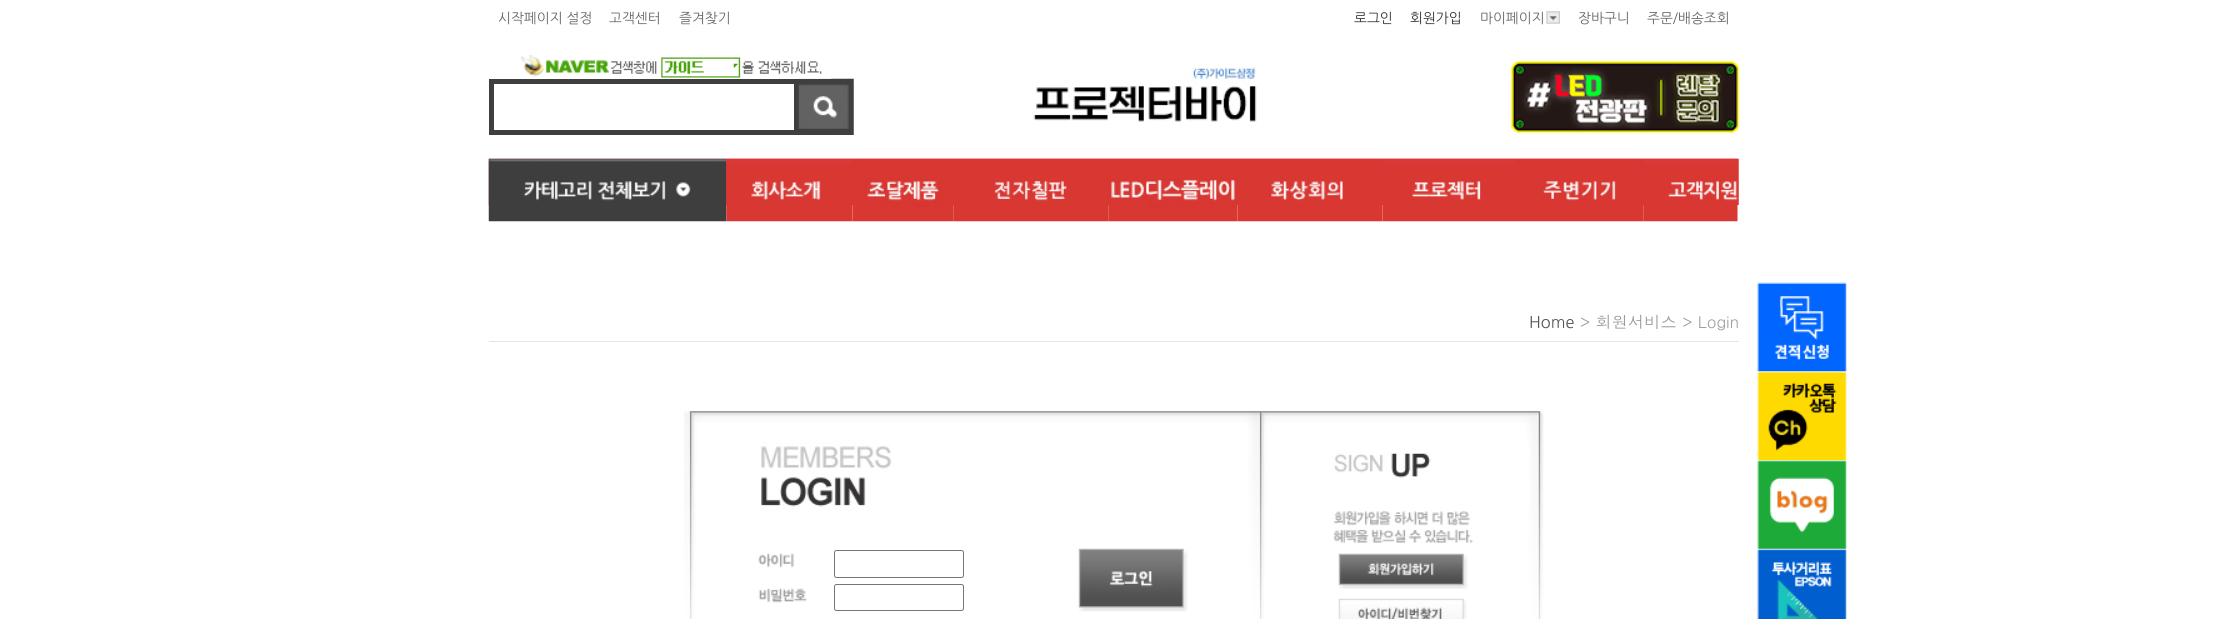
#include <cairo.h>
#include <math.h>
#include <stddef.h>

typedef struct { const char *family; double size; int italic, bold; unsigned color; } style_t;
static cairo_t *ctx;

static void ink(unsigned color) {
    cairo_set_source_rgb(ctx, (color >> 16) / 255.0, (color >> 8 & 255) / 255.0, (color & 255) / 255.0);
}

static void write(double x, double y, const char *s, const style_t *st) {
    cairo_select_font_face(ctx, st->family, st->italic ? CAIRO_FONT_SLANT_ITALIC : CAIRO_FONT_SLANT_NORMAL,
        st->bold ? CAIRO_FONT_WEIGHT_BOLD : CAIRO_FONT_WEIGHT_NORMAL);
    cairo_set_font_size(ctx, st->size);
    ink(st->color);
    cairo_move_to(ctx, x, y);
    cairo_show_text(ctx, s);
}

static void block(double x, double y, double w, double h, unsigned color) {
    ink(color);
    cairo_rectangle(ctx, x, y, w, h);
    cairo_fill(ctx);
}

static void round_path(double x, double y, double w, double h, double r) {
    cairo_new_sub_path(ctx);
    cairo_arc(ctx, x + w - r, y + h - r, r, 0, M_PI / 2);
    cairo_arc(ctx, x + r, y + h - r, r, M_PI / 2, M_PI);
    cairo_arc(ctx, x + r, y + r, r, M_PI, 1.5 * M_PI);
    cairo_arc(ctx, x + w - r, y + r, r, 1.5 * M_PI, 2 * M_PI);
    cairo_close_path(ctx);
}

static void paste(const char *path, double x, double y, double w, double h) {
    cairo_surface_t *image = cairo_image_surface_create_from_png(path);
    cairo_save(ctx);
    cairo_set_source_surface(ctx, image, x, y);
    cairo_rectangle(ctx, x, y, w, h);
    cairo_fill(ctx);
    cairo_restore(ctx);
    cairo_surface_destroy(image);
}

static const style_t s1 = {"NanumGothic", 13.75, 0, 0, 0x666666};
static const style_t s2 = {"NanumGothic", 13.75, 0, 0, 0x333333};
static const style_t s3 = {"NanumGothic", 16.25, 0, 0, 0x555555};
static const style_t s4 = {"Dotum", 16.25, 0, 0, 0x999999};

int main(void) {
    cairo_surface_t *surface = cairo_image_surface_create(CAIRO_FORMAT_RGB24, 2227, 619);
    ctx = cairo_create(surface);
    cairo_font_options_t *options = cairo_font_options_create();
    cairo_font_options_set_hint_metrics(options, CAIRO_HINT_METRICS_OFF);
    cairo_font_options_set_hint_style(options, CAIRO_HINT_STYLE_NONE);
    cairo_set_font_options(ctx, options);
    cairo_set_miter_limit(ctx, 4);
    ink(0xffffff);
    cairo_paint(ctx);
    write(498, 23, "시작페이지 설정", &s1);
    write(609, 23, "고객센터", &s1);
    write(679, 23, "즐겨찾기", &s1);
    write(1354, 23, "로그인", &s2);
    write(1410, 23, "회원가입", &s2);
    write(1480, 23, "마이페이지", &s1);
    paste("pic1.png", 1546, 11, 14, 13);
    write(1578, 23, "장바구니", &s1);
    write(1647, 23, "주문/배송조회", &s1);
    cairo_rectangle(ctx, 491.5, 81.5, 305, 51);
    ink(0x3f3f3f);
    cairo_set_line_width(ctx, 5);
    cairo_stroke(ctx);
    paste("pic3.png", 798, 78, 56, 57);
    paste("pic2.png", 520, 55, 312, 24);
    paste("pic4.png", 1033, 67, 224, 55);
    paste("pic5.png", 1511, 61, 228, 72);
    paste("pic6.png", 488, 158, 1251, 47);
    paste("pic7.png", 488, 158, 239, 64);
    paste("pic8.png", 726, 158, 127, 64);
    paste("pic9.png", 852, 158, 102, 64);
    paste("pic10.png", 953, 158, 156, 64);
    paste("pic11.png", 1108, 158, 130, 64);
    paste("pic12.png", 1237, 158, 146, 64);
    paste("pic13.png", 1382, 158, 133, 64);
    paste("pic14.png", 1515, 158, 129, 64);
    paste("pic15.png", 1643, 158, 95, 64);
    block(489, 341, 1250, 1, 0xe5e5e5);
    write(1529, 328, "Home", &s3);
    write(1580, 328, "> 회원서비스 > Login", &s4);
    paste("pic16.png", 684, 411, 860, 208);
    paste("pic17.png", 758, 553, 36, 15);
    round_path(834.5, 550.5, 129, 27, 2);
    ink(0x767676);
    cairo_set_line_width(ctx, 1);
    cairo_stroke(ctx);
    paste("pic18.png", 758, 588, 49, 15);
    round_path(834.5, 584.5, 129, 26, 2);
    cairo_stroke(ctx);
    paste("pic19.png", 1078, 548, 110, 64);
    paste("pic20.png", 1333, 511, 140, 32);
    paste("pic21.png", 1338, 553, 130, 36);
    paste("pic22.png", 1338, 598, 129, 21);
    paste("pic23.png", 1757, 282, 90, 90);
    paste("pic24.png", 1757, 371, 90, 89);
    paste("pic25.png", 1757, 460, 90, 89);
    paste("pic26.png", 1757, 548, 90, 71);
    cairo_surface_write_to_png(surface, "screenshot.png");
    cairo_font_options_destroy(options);
    cairo_destroy(ctx);
    cairo_surface_destroy(surface);
    return 0;
}
